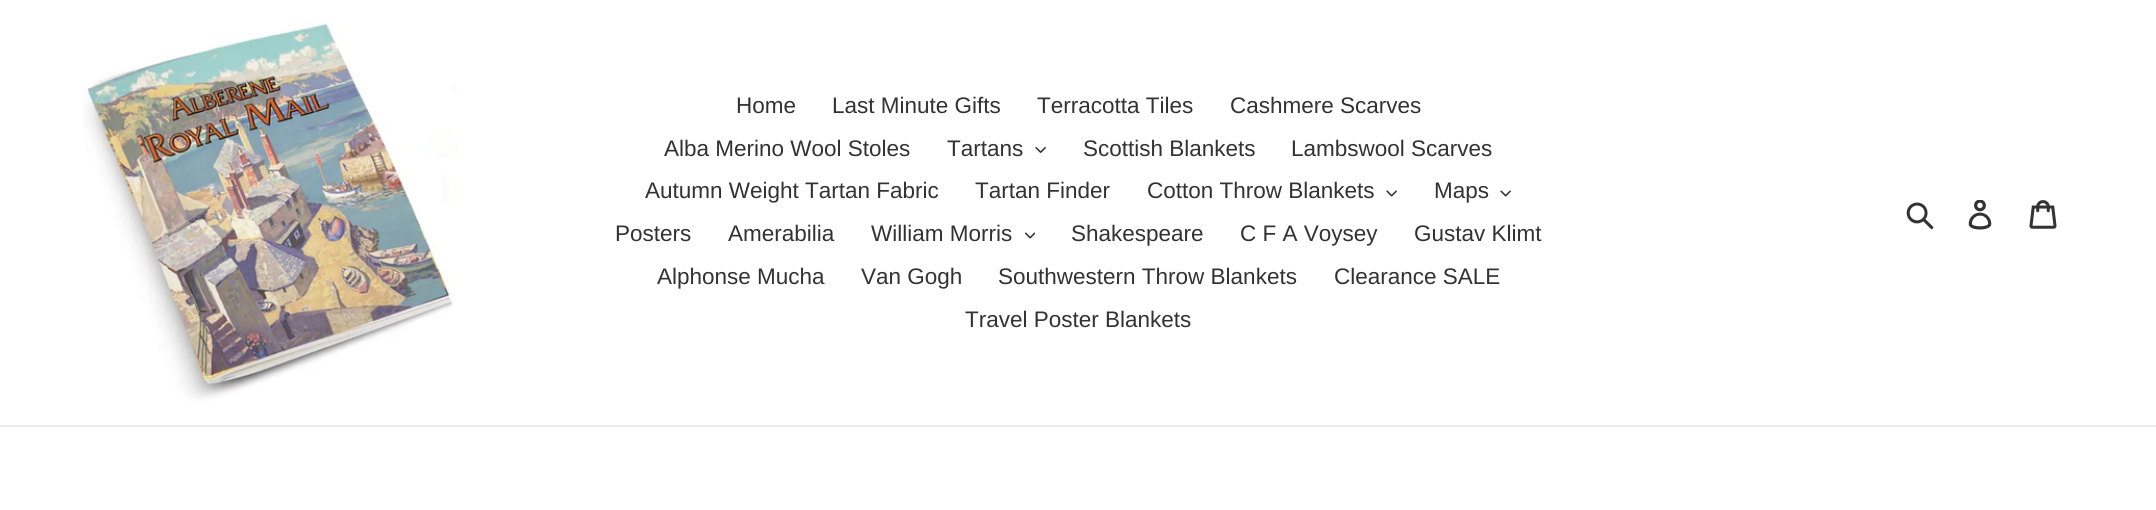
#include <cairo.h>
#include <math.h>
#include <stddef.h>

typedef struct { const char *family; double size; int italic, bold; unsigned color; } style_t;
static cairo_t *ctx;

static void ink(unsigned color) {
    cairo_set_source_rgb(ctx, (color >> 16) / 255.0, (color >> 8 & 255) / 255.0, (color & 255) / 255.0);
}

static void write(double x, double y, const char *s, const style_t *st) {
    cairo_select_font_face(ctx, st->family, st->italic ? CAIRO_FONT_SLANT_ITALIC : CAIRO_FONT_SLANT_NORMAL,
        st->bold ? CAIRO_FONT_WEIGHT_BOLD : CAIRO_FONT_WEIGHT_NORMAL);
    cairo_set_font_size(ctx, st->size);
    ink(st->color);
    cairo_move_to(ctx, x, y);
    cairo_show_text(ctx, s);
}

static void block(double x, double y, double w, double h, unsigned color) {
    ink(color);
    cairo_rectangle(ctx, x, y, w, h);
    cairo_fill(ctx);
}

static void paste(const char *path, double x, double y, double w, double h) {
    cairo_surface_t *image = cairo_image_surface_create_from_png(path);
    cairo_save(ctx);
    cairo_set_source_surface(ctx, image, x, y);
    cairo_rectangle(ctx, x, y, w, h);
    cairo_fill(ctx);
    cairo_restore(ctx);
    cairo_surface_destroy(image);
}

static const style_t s1 = {"Liberation Sans", 22.5, 0, 0, 0x333232};

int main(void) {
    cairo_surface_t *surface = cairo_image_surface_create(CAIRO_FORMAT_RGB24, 2156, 510);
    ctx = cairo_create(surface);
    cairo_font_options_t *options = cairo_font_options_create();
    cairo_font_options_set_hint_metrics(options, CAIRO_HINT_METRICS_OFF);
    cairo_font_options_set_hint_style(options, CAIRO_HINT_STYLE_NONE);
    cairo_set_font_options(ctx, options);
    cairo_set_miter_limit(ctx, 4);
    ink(0xffffff);
    cairo_paint(ctx);
    block(0, 425, 2156, 2, 0xebebeb);
    paste("pic1.png", 82, 22, 375, 379);
    write(736, 113, "Home", &s1);
    write(832, 113, "Last Minute Gifts", &s1);
    write(1037, 113, "Terracotta Tiles", &s1);
    write(1230, 113, "Cashmere Scarves", &s1);
    write(664, 156, "Alba Merino Wool Stoles", &s1);
    write(947, 156, "Tartans", &s1);
    paste("pic2.png", 1035, 147, 11, 6);
    write(1083, 156, "Scottish Blankets", &s1);
    write(1291, 156, "Lambswool Scarves", &s1);
    write(645, 198, "Autumn Weight Tartan Fabric", &s1);
    write(975, 198, "Tartan Finder", &s1);
    write(1147, 198, "Cotton Throw Blankets", &s1);
    paste("pic3.png", 1386, 190, 11, 7);
    write(1434, 198, "Maps", &s1);
    paste("pic3.png", 1500, 190, 11, 7);
    write(615, 241, "Posters", &s1);
    write(728, 241, "Amerabilia", &s1);
    write(871, 241, "William Morris", &s1);
    paste("pic4.png", 1025, 232, 10, 7);
    write(1071, 241, "Shakespeare", &s1);
    write(1240, 241, "C F A Voysey", &s1);
    write(1414, 241, "Gustav Klimt", &s1);
    write(657, 284, "Alphonse Mucha", &s1);
    write(861, 284, "Van Gogh", &s1);
    write(998, 284, "Southwestern Throw Blankets", &s1);
    write(1334, 284, "Clearance SALE", &s1);
    write(965, 327, "Travel Poster Blankets", &s1);
    paste("pic5.png", 1906, 202, 28, 28);
    paste("pic6.png", 1968, 200, 24, 30);
    paste("pic7.png", 2029, 200, 28, 29);
    cairo_surface_write_to_png(surface, "screenshot.png");
    cairo_font_options_destroy(options);
    cairo_destroy(ctx);
    cairo_surface_destroy(surface);
    return 0;
}
